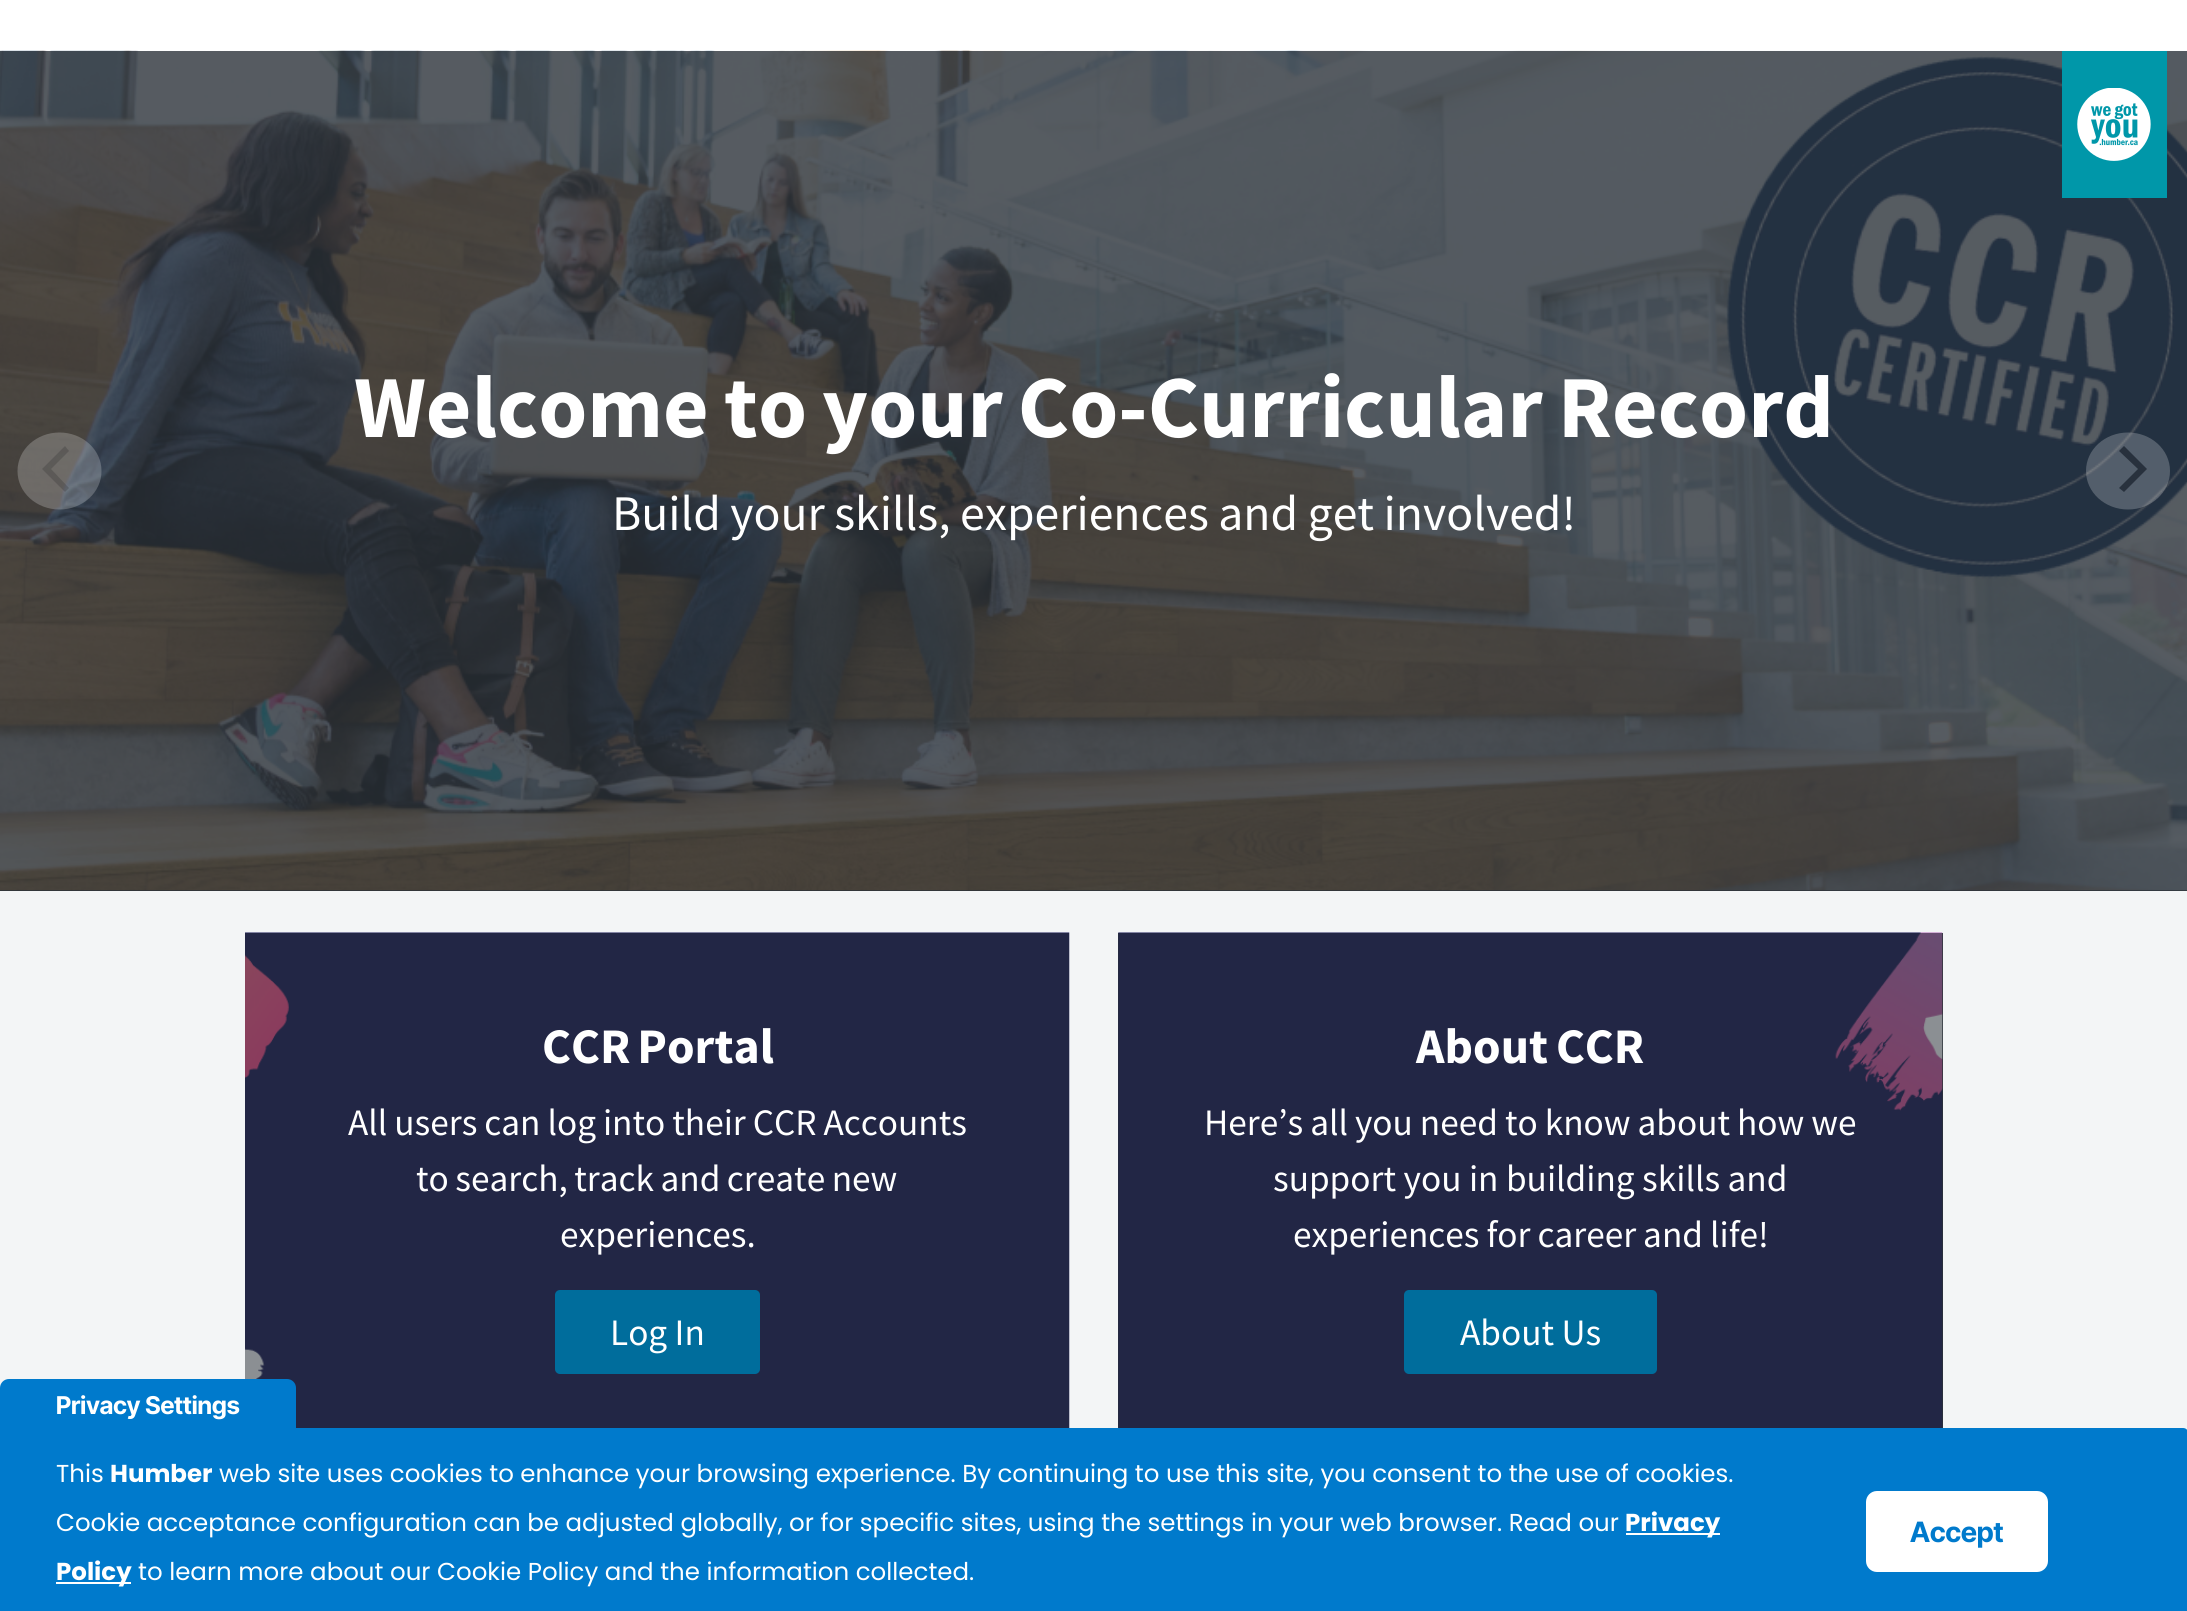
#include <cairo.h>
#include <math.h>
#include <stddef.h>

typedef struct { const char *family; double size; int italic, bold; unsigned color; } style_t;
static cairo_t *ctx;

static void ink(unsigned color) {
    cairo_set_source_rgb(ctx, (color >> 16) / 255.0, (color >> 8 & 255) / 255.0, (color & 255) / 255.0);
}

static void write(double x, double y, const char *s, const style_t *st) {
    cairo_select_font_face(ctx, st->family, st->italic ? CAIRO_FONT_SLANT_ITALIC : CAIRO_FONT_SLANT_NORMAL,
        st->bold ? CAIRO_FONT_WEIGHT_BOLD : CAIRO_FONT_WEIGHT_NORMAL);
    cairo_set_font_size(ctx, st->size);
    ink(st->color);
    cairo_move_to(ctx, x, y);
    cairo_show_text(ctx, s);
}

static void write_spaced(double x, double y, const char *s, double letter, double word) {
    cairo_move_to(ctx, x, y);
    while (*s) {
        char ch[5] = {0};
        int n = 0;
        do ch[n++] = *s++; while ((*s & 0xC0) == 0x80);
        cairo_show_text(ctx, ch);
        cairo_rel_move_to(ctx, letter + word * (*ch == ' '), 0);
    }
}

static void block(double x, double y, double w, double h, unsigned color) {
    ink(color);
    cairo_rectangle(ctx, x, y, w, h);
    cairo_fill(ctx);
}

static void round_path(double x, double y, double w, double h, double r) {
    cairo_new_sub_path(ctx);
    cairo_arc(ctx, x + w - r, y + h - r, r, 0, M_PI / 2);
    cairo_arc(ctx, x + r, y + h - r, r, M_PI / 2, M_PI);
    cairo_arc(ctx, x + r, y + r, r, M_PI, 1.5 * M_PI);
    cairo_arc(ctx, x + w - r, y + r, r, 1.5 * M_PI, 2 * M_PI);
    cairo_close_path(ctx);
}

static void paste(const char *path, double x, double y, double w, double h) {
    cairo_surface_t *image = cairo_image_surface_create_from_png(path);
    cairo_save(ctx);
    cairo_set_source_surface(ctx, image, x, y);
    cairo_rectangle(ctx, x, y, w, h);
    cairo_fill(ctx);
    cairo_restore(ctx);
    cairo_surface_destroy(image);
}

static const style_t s1 = {"Source Sans Pro", 37.3, 0, 0, 0xffffff};
static const style_t s2 = {"Inter Tight", 24.5, 0, 1, 0xffffff};
static const style_t s3 = {"Poppins", 24.5, 0, 0, 0xffffff};
static const style_t s4 = {"Poppins", 24.5, 0, 1, 0xffffff};
static const style_t s5 = {"Inter Tight", 28, 0, 1, 0x007acc};

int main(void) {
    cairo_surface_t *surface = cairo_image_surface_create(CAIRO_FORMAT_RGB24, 2187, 1611);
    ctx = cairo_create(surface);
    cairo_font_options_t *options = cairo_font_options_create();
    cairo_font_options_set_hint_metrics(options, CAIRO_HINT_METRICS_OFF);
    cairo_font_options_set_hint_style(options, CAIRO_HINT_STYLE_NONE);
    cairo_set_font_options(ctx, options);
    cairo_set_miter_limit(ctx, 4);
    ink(0xf3f5f6);
    cairo_paint(ctx);
    block(0, 0, 2187, 51, 0xffffff);
    block(0, 890, 2187, 1, 0x2c333a);
    paste("pic2.png", 0, 50, 2187, 841);
    block(2062, 51, 105, 147, 0x0097a9);
    paste("pic1.png", 2077, 88, 74, 73);
    cairo_set_source_rgba(ctx, 1, 1, 1, 0.22);
    cairo_new_path(ctx);
    cairo_move_to(ctx, 59.5, 432.5);
    cairo_curve_to(ctx, 82.5, 432.5, 101.5, 449.5, 101.5, 471);
    cairo_curve_to(ctx, 101.5, 492.5, 82.5, 509.5, 59.5, 509.5);
    cairo_curve_to(ctx, 36.5, 509.5, 17.5, 492.5, 17.5, 471);
    cairo_curve_to(ctx, 17.5, 449.5, 36.5, 432.5, 59.5, 432.5);
    cairo_close_path(ctx);
    cairo_fill(ctx);
    cairo_set_source_rgba(ctx, 0.2, 0.2, 0.2, 0.3);
    cairo_new_path(ctx);
    cairo_move_to(ctx, 42, 469);
    cairo_line_to(ctx, 65, 492);
    cairo_line_to(ctx, 69, 488);
    cairo_line_to(ctx, 51, 469);
    cairo_line_to(ctx, 69, 451);
    cairo_line_to(ctx, 65, 446);
    cairo_close_path(ctx);
    cairo_fill(ctx);
    cairo_select_font_face(ctx, "Source Sans Pro", CAIRO_FONT_SLANT_NORMAL, CAIRO_FONT_WEIGHT_BOLD);
    cairo_set_font_size(ctx, 88.4);
    ink(0xffffff);
    write_spaced(354, 437, "Welcome to your Co-Curricular Record", 0, -2.5);
    cairo_select_font_face(ctx, "Source Sans Pro", CAIRO_FONT_SLANT_NORMAL, CAIRO_FONT_WEIGHT_NORMAL);
    cairo_set_font_size(ctx, 49.75);
    write_spaced(612, 530, "Build your skills, experiences and get involved!", 0, -0.5);
    cairo_set_source_rgba(ctx, 1, 1, 1, 0.22);
    cairo_new_path(ctx);
    cairo_move_to(ctx, 2128, 432.5);
    cairo_curve_to(ctx, 2151, 432.5, 2170, 449.5, 2170, 471);
    cairo_curve_to(ctx, 2170, 492.5, 2151, 509.5, 2128, 509.5);
    cairo_curve_to(ctx, 2105, 509.5, 2086, 492.5, 2086, 471);
    cairo_curve_to(ctx, 2086, 449.5, 2105, 432.5, 2128, 432.5);
    cairo_close_path(ctx);
    cairo_fill(ctx);
    ink(0x28313d);
    cairo_new_path(ctx);
    cairo_move_to(ctx, 2147, 469);
    cairo_line_to(ctx, 2124, 446);
    cairo_line_to(ctx, 2119, 451);
    cairo_line_to(ctx, 2138, 469);
    cairo_line_to(ctx, 2119, 488);
    cairo_line_to(ctx, 2124, 492);
    cairo_close_path(ctx);
    cairo_fill(ctx);
    paste("pic3.png", 245, 932, 825, 496);
    cairo_select_font_face(ctx, "Source Sans Pro", CAIRO_FONT_SLANT_NORMAL, CAIRO_FONT_WEIGHT_BOLD);
    ink(0xffffff);
    write_spaced(542, 1063, "CCR Portal", 0, -3);
    cairo_select_font_face(ctx, "Source Sans Pro", CAIRO_FONT_SLANT_NORMAL, CAIRO_FONT_WEIGHT_NORMAL);
    cairo_set_font_size(ctx, 37.3);
    write_spaced(348, 1135, "All users can log into their CCR Accounts", 0, -0.5);
    write_spaced(416, 1191, "to search, track and create new", 0, -1);
    write(560, 1247, "experiences.", &s1);
    ink(0x006d9c);
    round_path(555, 1290, 205, 84, 5);
    cairo_fill(ctx);
    write(610, 1345, "Log In", &s1);
    block(1118, 933, 825, 495, 0x2c333a);
    paste("pic4.png", 1118, 932, 825, 496);
    cairo_select_font_face(ctx, "Source Sans Pro", CAIRO_FONT_SLANT_NORMAL, CAIRO_FONT_WEIGHT_BOLD);
    cairo_set_font_size(ctx, 49.75);
    ink(0xffffff);
    write_spaced(1416, 1063, "About CCR", 0, -2);
    cairo_select_font_face(ctx, "Source Sans Pro", CAIRO_FONT_SLANT_NORMAL, CAIRO_FONT_WEIGHT_NORMAL);
    cairo_set_font_size(ctx, 37.3);
    write_spaced(1204, 1135, "Here’s all you need to know about how we", 0, -0.5);
    write(1273, 1191, "support you in building skills and", &s1);
    write_spaced(1293, 1247, "experiences for career and life!", 0, -0.5);
    ink(0x006d9c);
    round_path(1404, 1290, 253, 84, 5);
    cairo_fill(ctx);
    write(1460, 1345, "About Us", &s1);
    ink(0x007acc);
    cairo_new_path(ctx);
    cairo_move_to(ctx, 0, 1428);
    cairo_line_to(ctx, 2183, 1428);
    cairo_curve_to(ctx, 2186, 1428, 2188, 1430, 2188, 1433);
    cairo_line_to(ctx, 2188, 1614);
    cairo_line_to(ctx, 0, 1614);
    cairo_close_path(ctx);
    cairo_fill(ctx);
    cairo_new_path(ctx);
    cairo_move_to(ctx, 9, 1379);
    cairo_line_to(ctx, 287, 1379);
    cairo_curve_to(ctx, 292, 1379, 296, 1383, 296, 1388);
    cairo_line_to(ctx, 296, 1428);
    cairo_line_to(ctx, 0, 1428);
    cairo_line_to(ctx, 0, 1388);
    cairo_curve_to(ctx, 0, 1383, 4, 1379, 9, 1379);
    cairo_close_path(ctx);
    cairo_fill(ctx);
    write(56, 1414, "Privacy Settings", &s2);
    write(56, 1482, "This", &s3);
    write(110, 1482, "Humber", &s4);
    write(219, 1482, "web site uses cookies to enhance your browsing experience. By continuing to use this site, you consent to the use of cookies.", &s3);
    write(56, 1531, "Cookie acceptance configuration can be adjusted globally, or for specific sites, using the settings in your web browser. Read our", &s3);
    block(1626, 1533, 94, 2, 0xffffff);
    write(1625, 1531, "Privacy", &s4);
    block(56, 1582, 75, 2, 0xffffff);
    write(56, 1580, "Policy", &s4);
    write(138, 1580, "to learn more about our Cookie Policy and the information collected.", &s3);
    round_path(1867, 1492, 180, 79, 10);
    cairo_fill_preserve(ctx);
    cairo_stroke(ctx);
    write(1910, 1542, "Accept", &s5);
    cairo_surface_write_to_png(surface, "screenshot.png");
    cairo_font_options_destroy(options);
    cairo_destroy(ctx);
    cairo_surface_destroy(surface);
    return 0;
}
